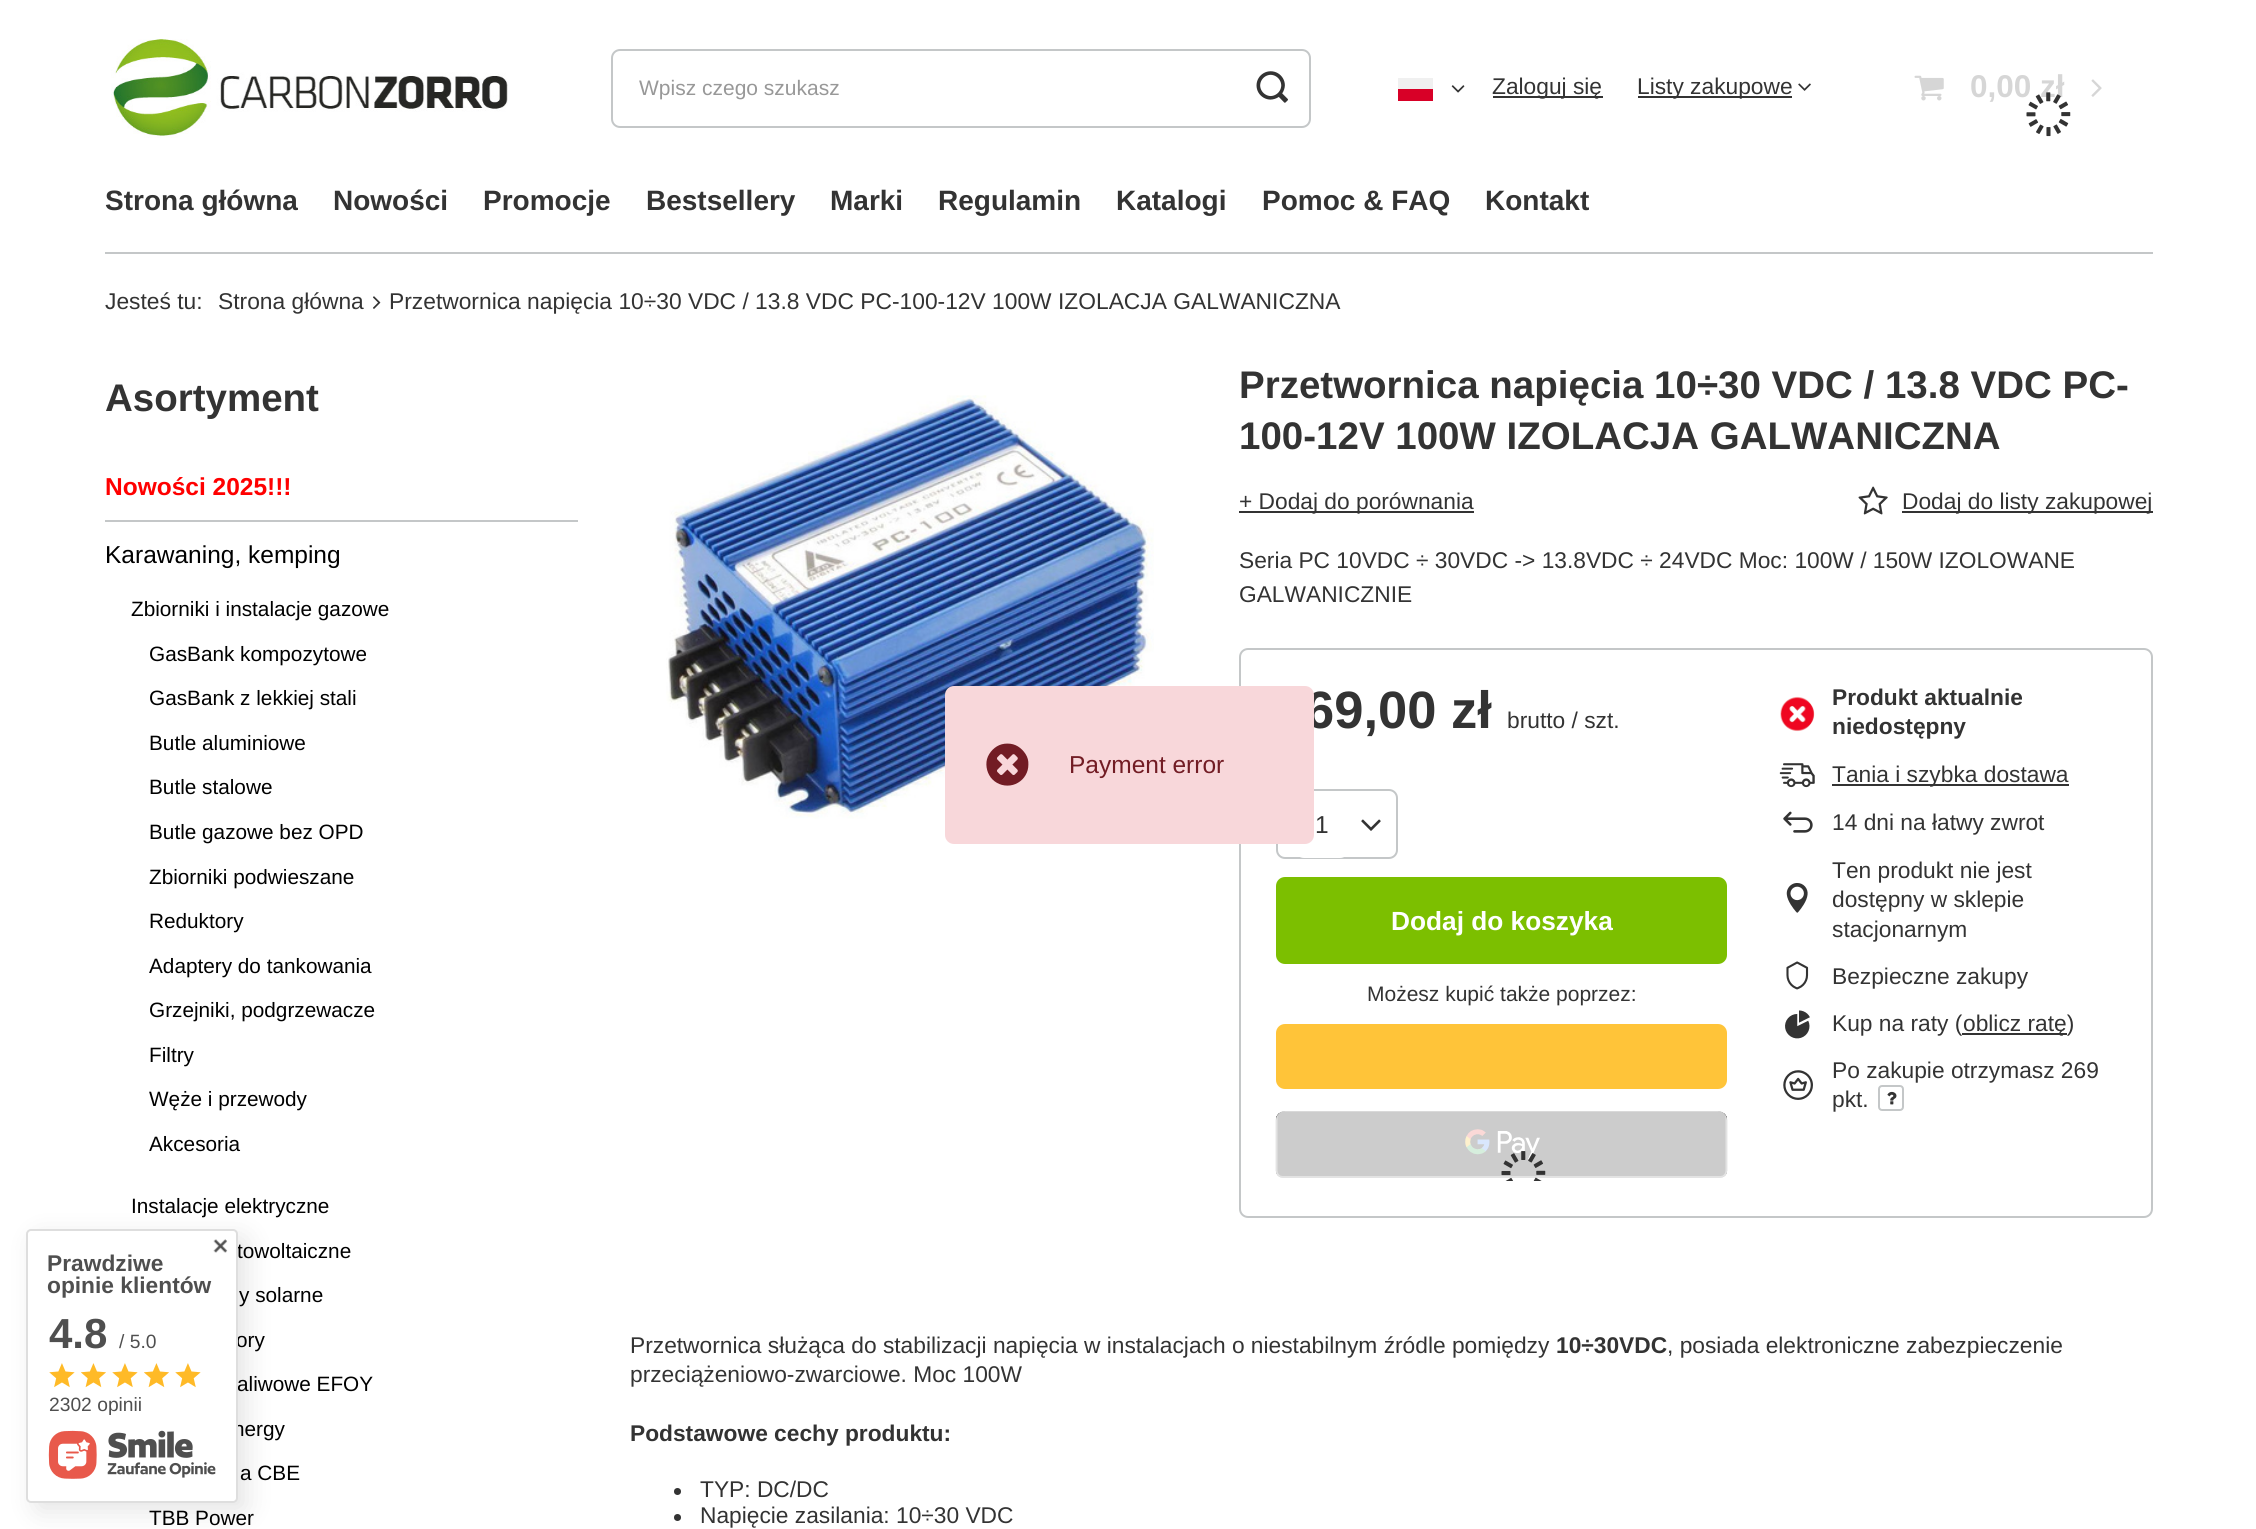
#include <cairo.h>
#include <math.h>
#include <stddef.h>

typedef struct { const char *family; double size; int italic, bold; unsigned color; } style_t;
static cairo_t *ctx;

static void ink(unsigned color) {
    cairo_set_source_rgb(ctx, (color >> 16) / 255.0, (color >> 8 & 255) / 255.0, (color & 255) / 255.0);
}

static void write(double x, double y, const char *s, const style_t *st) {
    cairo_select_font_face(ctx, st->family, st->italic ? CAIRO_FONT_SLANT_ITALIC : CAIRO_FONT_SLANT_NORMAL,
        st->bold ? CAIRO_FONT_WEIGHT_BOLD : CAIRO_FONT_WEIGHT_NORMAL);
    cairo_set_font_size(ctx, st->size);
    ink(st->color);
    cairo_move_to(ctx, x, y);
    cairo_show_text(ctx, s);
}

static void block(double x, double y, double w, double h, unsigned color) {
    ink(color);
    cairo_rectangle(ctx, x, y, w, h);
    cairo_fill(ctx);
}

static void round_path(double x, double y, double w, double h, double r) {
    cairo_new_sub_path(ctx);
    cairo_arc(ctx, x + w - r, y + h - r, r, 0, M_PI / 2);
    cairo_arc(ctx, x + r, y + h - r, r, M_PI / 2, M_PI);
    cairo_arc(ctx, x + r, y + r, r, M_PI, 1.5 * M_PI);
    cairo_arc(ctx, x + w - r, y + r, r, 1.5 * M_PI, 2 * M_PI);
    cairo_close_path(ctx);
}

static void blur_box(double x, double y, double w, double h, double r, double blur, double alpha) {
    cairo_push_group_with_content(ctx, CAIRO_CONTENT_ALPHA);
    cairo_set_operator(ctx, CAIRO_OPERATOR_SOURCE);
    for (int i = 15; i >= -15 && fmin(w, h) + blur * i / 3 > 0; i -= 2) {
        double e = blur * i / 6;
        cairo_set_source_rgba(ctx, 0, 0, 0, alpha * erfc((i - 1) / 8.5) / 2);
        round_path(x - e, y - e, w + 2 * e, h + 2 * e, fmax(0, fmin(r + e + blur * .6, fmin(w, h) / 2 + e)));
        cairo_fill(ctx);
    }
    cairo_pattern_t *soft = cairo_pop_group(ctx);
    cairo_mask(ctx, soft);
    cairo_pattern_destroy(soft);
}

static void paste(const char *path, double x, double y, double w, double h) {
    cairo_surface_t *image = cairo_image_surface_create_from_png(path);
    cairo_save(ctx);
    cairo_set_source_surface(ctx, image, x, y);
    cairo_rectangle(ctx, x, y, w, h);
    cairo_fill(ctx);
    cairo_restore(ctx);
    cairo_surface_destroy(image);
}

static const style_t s1 = {"Liberation Sans", 21, 0, 0, 0x989898};
static const style_t s2 = {"Liberation Sans", 22.75, 0, 0, 0x333333};
static const style_t s3 = {"Liberation Sans", 31.5, 0, 1, 0xd6d6d6};
static const style_t s4 = {"Liberation Sans", 28, 0, 1, 0x333333};
static const style_t s5 = {"Liberation Sans", 22.8, 0, 0, 0x333333};
static const style_t s6 = {"Liberation Sans", 38.5, 0, 1, 0x333333};
static const style_t s7 = {"Liberation Sans", 24.5, 0, 1, 0xff0000};
static const style_t s8 = {"Liberation Sans", 24.5, 0, 0, 0x000000};
static const style_t s9 = {"Liberation Sans", 20.75, 0, 0, 0x000000};
static const style_t s10 = {"Liberation Sans", 52.5, 0, 1, 0x333333};
static const style_t s11 = {"Liberation Sans", 22.75, 0, 1, 0x333333};
static const style_t s12 = {"Liberation Sans", 24.5, 0, 0, 0x333333};
static const style_t s13 = {"Liberation Sans", 26.25, 0, 1, 0xffffff};
static const style_t s14 = {"Liberation Sans", 21, 0, 0, 0x333333};
static const style_t s15 = {"Liberation Sans", 24.5, 0, 0, 0x721c24};
static const style_t s16 = {"Liberation Sans", 22.75, 0, 1, 0x4f4f4f};
static const style_t s17 = {"Liberation Sans", 42, 0, 1, 0x4f4f4f};
static const style_t s18 = {"Liberation Sans", 19.25, 0, 0, 0x4f4f4f};

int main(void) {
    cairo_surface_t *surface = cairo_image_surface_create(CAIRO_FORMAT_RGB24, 2256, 1529);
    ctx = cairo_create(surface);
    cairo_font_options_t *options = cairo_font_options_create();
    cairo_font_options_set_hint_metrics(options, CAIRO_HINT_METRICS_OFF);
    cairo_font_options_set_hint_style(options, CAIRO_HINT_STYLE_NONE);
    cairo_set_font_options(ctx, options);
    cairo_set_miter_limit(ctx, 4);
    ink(0xffffff);
    cairo_paint(ctx);
    paste("pic1.png", 111, 39, 397, 99);
    round_path(612, 50, 698, 77, 8);
    ink(0xc4c7c8);
    cairo_stroke(ctx);
    write(639, 95, "Wpisz czego szukasz", &s1);
    paste("pic2.png", 1256, 71, 32, 32);
    block(1398, 78, 35, 11, 0xf0f0f0);
    block(1398, 89, 35, 12, 0xd80027);
    paste("pic3.png", 1451, 85, 14, 8);
    block(1493, 96, 110, 2, 0x333333);
    write(1492, 94, "Zaloguj się", &s2);
    block(1638, 96, 154, 2, 0x333333);
    write(1637, 94, "Listy zakupowe", &s2);
    paste("pic4.png", 1798, 83, 13, 8);
    paste("pic5.png", 1914, 75, 30, 26);
    write(1970, 97, "0,00 zł", &s3);
    paste("pic6.png", 2091, 79, 11, 18);
    paste("pic7.png", 2026, 92, 45, 45);
    block(105, 252, 2048, 2, 0xc4c7c8);
    write(105, 210, "Strona główna", &s4);
    write(333, 210, "Nowości", &s4);
    write(483, 210, "Promocje", &s4);
    write(646, 210, "Bestsellery", &s4);
    write(830, 210, "Marki", &s4);
    write(938, 210, "Regulamin", &s4);
    write(1116, 210, "Katalogi", &s4);
    write(1262, 210, "Pomoc & FAQ", &s4);
    write(1485, 210, "Kontakt", &s4);
    write(105, 309, "Jesteś tu:", &s5);
    write(218, 309, "Strona główna", &s5);
    paste("pic8.png", 373, 296, 8, 13);
    write(389, 309, "Przetwornica napięcia 10÷30 VDC / 13.8 VDC PC-100-12V 100W IZOLACJA GALWANICZNA", &s5);
    write(105, 411, "Asortyment", &s6);
    block(105, 520, 473, 2, 0xc4c7c8);
    write(105, 495, "Nowości 2025!!!", &s7);
    write(105, 563, "Karawaning, kemping", &s8);
    write(131, 616, "Zbiorniki i instalacje gazowe", &s9);
    write(149, 661, "GasBank kompozytowe", &s9);
    write(149, 705, "GasBank z lekkiej stali", &s9);
    write(149, 750, "Butle aluminiowe", &s9);
    write(149, 794, "Butle stalowe", &s9);
    write(149, 839, "Butle gazowe bez OPD", &s9);
    write(149, 884, "Zbiorniki podwieszane", &s9);
    write(149, 928, "Reduktory", &s9);
    write(149, 973, "Adaptery do tankowania", &s9);
    write(149, 1017, "Grzejniki, podgrzewacze", &s9);
    write(149, 1062, "Filtry", &s9);
    write(149, 1106, "Węże i przewody", &s9);
    write(149, 1151, "Akcesoria", &s9);
    write(131, 1213, "Instalacje elektryczne", &s9);
    write(237, 1258, "towoltaiczne", &s9);
    write(239, 1302, "y solarne", &s9);
    write(236, 1347, "ory", &s9);
    write(237, 1391, "aliwowe EFOY", &s9);
    write(233, 1436, "nergy", &s9);
    write(240, 1480, "a CBE", &s9);
    write(149, 1525, "TBB Power", &s9);
    paste("pic9.png", 666, 395, 488, 424);
    write(1239, 398, "Przetwornica napięcia 10÷30 VDC / 13.8 VDC PC-", &s6);
    write(1239, 449, "100-12V 100W IZOLACJA GALWANICZNA", &s6);
    block(1239, 511, 235, 2, 0x333333);
    write(1239, 509, "+ Dodaj do porównania", &s2);
    paste("pic10.png", 1858, 486, 30, 29);
    block(1902, 511, 251, 2, 0x333333);
    write(1902, 509, "Dodaj do listy zakupowej", &s2);
    write(1239, 568, "Seria PC 10VDC ÷ 30VDC -> 13.8VDC ÷ 24VDC Moc: 100W / 150W IZOLOWANE", &s2);
    write(1239, 602, "GALWANICZNIE", &s2);
    round_path(1240, 649, 912, 568, 8);
    ink(0xc4c7c8);
    cairo_stroke(ctx);
    write(1305, 728, "69,00 zł", &s10);
    write(1507, 728, "brutto / szt.", &s2);
    paste("pic11.png", 1780, 696, 35, 36);
    write(1832, 705, "Produkt aktualnie", &s11);
    write(1832, 734, "niedostępny", &s11);
    paste("pic12.png", 1779, 763, 36, 25);
    block(1832, 784, 237, 2, 0x333333);
    write(1832, 782, "Tania i szybka dostawa", &s2);
    paste("pic13.png", 1783, 811, 30, 22);
    write(1832, 830, "14 dni na łatwy zwrot", &s2);
    paste("pic14.png", 1786, 883, 22, 30);
    write(1832, 878, "Ten produkt nie jest", &s2);
    write(1832, 907, "dostępny w sklepie", &s2);
    write(1832, 937, "stacjonarnym", &s2);
    paste("pic15.png", 1786, 961, 23, 29);
    write(1832, 984, "Bezpieczne zakupy", &s2);
    paste("pic16.png", 1785, 1010, 25, 29);
    write(1832, 1031, "Kup na raty (", &s2);
    block(1962, 1033, 105, 2, 0x333333);
    write(1963, 1031, "oblicz ratę)", &s2);
    paste("pic17.png", 1783, 1070, 30, 30);
    write(1832, 1078, "Po zakupie otrzymasz 269", &s2);
    write(1832, 1107, "pkt.", &s2);
    round_path(1879, 1086, 24, 24, 3);
    ink(0xc4c7c8);
    cairo_stroke(ctx);
    paste("pic18.png", 1887, 1091, 10, 14);
    round_path(1277, 790, 120, 68, 8);
    cairo_stroke(ctx);
    paste("pic19.png", 1361, 819, 20, 12);
    ink(0xffffff);
    round_path(1295, 791, 54, 67, 9);
    cairo_fill(ctx);
    write(1315, 833, "1", &s12);
    ink(0x7cbf00);
    round_path(1277, 878, 449, 85, 8);
    cairo_fill_preserve(ctx);
    cairo_stroke(ctx);
    write(1391, 930, "Dodaj do koszyka", &s13);
    write(1367, 1001, "Możesz kupić także poprzez:", &s14);
    ink(0xffc439);
    round_path(1276, 1024, 451, 65, 9);
    cairo_fill(ctx);
    paste("pic20.png", 1275, 1111, 453, 67);
    cairo_set_source_rgba(ctx, 1, 1, 1, 0.8);
    round_path(1276, 1111, 451, 70, 9);
    cairo_fill(ctx);
    paste("pic21.png", 1501, 1151, 45, 30);
    write(630, 1353, "Przetwornica służąca do stabilizacji napięcia w instalacjach o niestabilnym źródle pomiędzy", &s2);
    write(1556, 1353, "10÷30VDC", &s11);
    write(1667, 1353, ", posiada elektroniczne zabezpieczenie", &s2);
    write(630, 1382, "przeciążeniowo-zwarciowe. Moc 100W", &s2);
    write(630, 1441, "Podstawowe cechy produktu:", &s11);
    cairo_new_path(ctx);
    cairo_arc(ctx, 677.5, 1491.5, 3.5, 0, 2 * M_PI);
    cairo_fill(ctx);
    write(700, 1497, "TYP: DC/DC", &s2);
    cairo_new_path(ctx);
    cairo_arc(ctx, 677.5, 1517.5, 3.5, 0, 2 * M_PI);
    cairo_fill(ctx);
    write(700, 1523, "Napięcie zasilania: 10÷30 VDC", &s2);
    ink(0xf8d7da);
    round_path(945, 686, 369, 158, 9);
    cairo_fill(ctx);
    paste("pic22.png", 986, 743, 43, 43);
    write(1069, 773, "Payment error", &s15);
    ink(0x000000);
    blur_box(35, 1237, 212, 275, 5, 13, 0.1);
    ink(0xffffff);
    round_path(27, 1230, 210, 272, 4);
    cairo_fill_preserve(ctx);
    ink(0xdedede);
    cairo_stroke(ctx);
    paste("pic23.png", 213, 1239, 15, 14);
    write(47, 1271, "Prawdziwe", &s16);
    write(47, 1293, "opinie klientów", &s16);
    write(49, 1348, "4.8", &s17);
    write(119, 1348, "/ 5.0", &s18);
    paste("pic24.png", 49, 1363, 26, 25);
    paste("pic25.png", 81, 1363, 25, 25);
    paste("pic24.png", 112, 1363, 26, 25);
    paste("pic25.png", 144, 1363, 25, 25);
    paste("pic24.png", 175, 1363, 26, 25);
    write(49, 1411, "2302 opinii", &s18);
    paste("pic26.png", 48, 1430, 168, 49);
    cairo_surface_write_to_png(surface, "screenshot.png");
    cairo_font_options_destroy(options);
    cairo_destroy(ctx);
    cairo_surface_destroy(surface);
    return 0;
}
